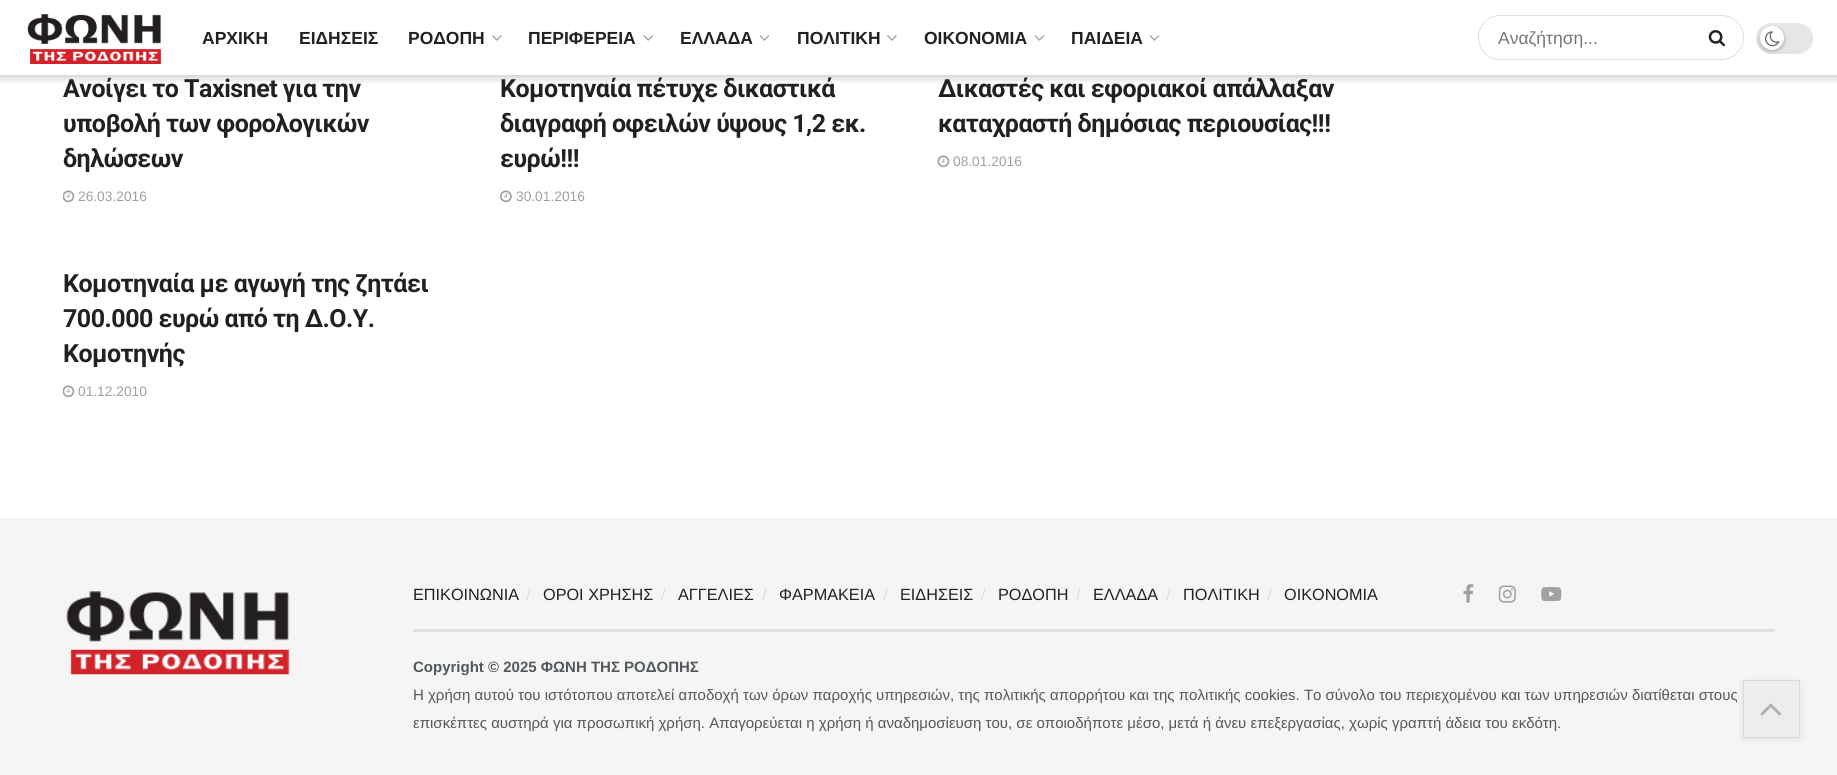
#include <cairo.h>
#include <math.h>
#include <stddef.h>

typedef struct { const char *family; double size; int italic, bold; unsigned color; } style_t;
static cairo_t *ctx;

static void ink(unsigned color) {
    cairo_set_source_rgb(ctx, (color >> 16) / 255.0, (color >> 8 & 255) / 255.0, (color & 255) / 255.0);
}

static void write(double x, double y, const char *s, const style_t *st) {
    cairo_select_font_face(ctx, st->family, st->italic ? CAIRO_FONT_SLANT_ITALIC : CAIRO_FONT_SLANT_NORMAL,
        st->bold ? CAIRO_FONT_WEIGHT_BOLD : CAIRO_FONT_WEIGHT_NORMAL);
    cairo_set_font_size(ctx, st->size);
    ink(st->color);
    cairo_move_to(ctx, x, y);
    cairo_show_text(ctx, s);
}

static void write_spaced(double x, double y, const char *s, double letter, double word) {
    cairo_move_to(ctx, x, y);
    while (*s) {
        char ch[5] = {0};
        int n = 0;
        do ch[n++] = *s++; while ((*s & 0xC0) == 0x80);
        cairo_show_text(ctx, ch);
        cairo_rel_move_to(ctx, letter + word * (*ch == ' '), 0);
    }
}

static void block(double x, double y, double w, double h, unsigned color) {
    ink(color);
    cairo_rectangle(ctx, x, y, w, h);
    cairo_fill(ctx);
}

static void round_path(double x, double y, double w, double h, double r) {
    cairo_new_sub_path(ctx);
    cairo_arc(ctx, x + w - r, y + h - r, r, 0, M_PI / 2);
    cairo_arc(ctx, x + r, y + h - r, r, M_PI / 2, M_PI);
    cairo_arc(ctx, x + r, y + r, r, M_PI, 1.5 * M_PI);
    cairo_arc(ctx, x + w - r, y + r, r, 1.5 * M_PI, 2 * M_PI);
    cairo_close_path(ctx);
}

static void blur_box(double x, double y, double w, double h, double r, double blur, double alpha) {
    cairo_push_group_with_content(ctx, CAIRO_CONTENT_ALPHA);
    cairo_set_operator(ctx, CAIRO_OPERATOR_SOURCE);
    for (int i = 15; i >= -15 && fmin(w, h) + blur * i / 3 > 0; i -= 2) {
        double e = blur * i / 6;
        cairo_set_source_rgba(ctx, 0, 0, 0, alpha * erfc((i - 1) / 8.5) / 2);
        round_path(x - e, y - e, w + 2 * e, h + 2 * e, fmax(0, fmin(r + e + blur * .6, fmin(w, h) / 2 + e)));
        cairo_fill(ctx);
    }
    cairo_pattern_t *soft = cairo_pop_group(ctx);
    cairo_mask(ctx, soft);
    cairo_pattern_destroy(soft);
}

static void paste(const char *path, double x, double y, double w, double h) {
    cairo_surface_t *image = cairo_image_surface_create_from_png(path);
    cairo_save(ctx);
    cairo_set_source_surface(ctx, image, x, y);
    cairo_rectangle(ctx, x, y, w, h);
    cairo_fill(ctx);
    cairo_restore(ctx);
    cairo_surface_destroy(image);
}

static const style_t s1 = {"Liberation Sans", 17.5, 0, 1, 0x212121};
static const style_t s2 = {"Liberation Sans", 17.5, 0, 0, 0x757575};
static const style_t s3 = {"Liberation Sans", 13.75, 0, 0, 0xa0a0a0};
static const style_t s4 = {"Liberation Sans", 16.25, 0, 0, 0x212121};
static const style_t s5 = {"Liberation Sans", 17.5, 0, 0, 0xe0e0e0};
static const style_t s6 = {"Liberation Sans", 15, 0, 1, 0x53585c};
static const style_t s7 = {"Liberation Sans", 15, 0, 0, 0x53585c};

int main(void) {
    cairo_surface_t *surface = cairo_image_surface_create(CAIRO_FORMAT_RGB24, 1837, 775);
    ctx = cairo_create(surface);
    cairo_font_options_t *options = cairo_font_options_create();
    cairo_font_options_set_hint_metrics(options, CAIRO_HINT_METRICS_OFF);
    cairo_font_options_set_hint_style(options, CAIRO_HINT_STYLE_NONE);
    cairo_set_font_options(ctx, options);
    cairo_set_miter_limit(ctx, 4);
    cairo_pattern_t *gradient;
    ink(0xffffff);
    cairo_paint(ctx);
    paste("pic1.png", 27, 14, 135, 50);
    write(202, 44, "ΑΡΧΙΚΗ", &s1);
    write(299, 44, "ΕΙΔΗΣΕΙΣ", &s1);
    write(408, 44, "ΡΟΔΟΠΗ", &s1);
    paste("pic2.png", 492, 35, 10, 6);
    write(528, 44, "ΠΕΡΙΦΕΡΕΙΑ", &s1);
    paste("pic3.png", 643, 35, 10, 6);
    write(680, 44, "ΕΛΛΑΔΑ", &s1);
    paste("pic4.png", 759, 35, 11, 6);
    write(797, 44, "ΠΟΛΙΤΙΚΗ", &s1);
    paste("pic2.png", 887, 35, 10, 6);
    write(924, 44, "ΟΙΚΟΝΟΜΙΑ", &s1);
    paste("pic4.png", 1034, 35, 11, 6);
    write(1071, 44, "ΠΑΙΔΕΙΑ", &s1);
    paste("pic4.png", 1149, 35, 11, 6);
    round_path(1478.5, 15.5, 265, 44, 22);
    ink(0xe0e0e0);
    cairo_set_line_width(ctx, 1);
    cairo_stroke(ctx);
    write(1498, 44, "Αναζήτηση...", &s2);
    paste("pic5.png", 1708, 30, 17, 17);
    ink(0xe6e6e6);
    round_path(1756, 23, 57, 31, 15.5);
    cairo_fill(ctx);
    ink(0x000000);
    blur_box(1760, 28, 24, 23, 11.5, 2, 0.3);
    ink(0xffffff);
    cairo_arc(ctx, 1772, 38, 12, 0, 2 * M_PI);
    cairo_fill(ctx);
    paste("pic6.png", 1765, 31, 15, 16);
    gradient = cairo_pattern_create_linear(919, 75, 919, 84);
    cairo_pattern_add_color_stop_rgba(gradient, 0, 0, 0, 0, 0.15);
    cairo_pattern_add_color_stop_rgba(gradient, 1, 0, 0, 0, 0);
    cairo_set_source(ctx, gradient);
    cairo_pattern_destroy(gradient);
    cairo_rectangle(ctx, 0, 75, 1837, 8);
    cairo_fill(ctx);
    cairo_select_font_face(ctx, "Roboto", CAIRO_FONT_SLANT_NORMAL, CAIRO_FONT_WEIGHT_BOLD);
    cairo_set_font_size(ctx, 25);
    ink(0x212121);
    write_spaced(63, 97, "Ανοίγει το Taxisnet για την", -0.5, 0);
    write_spaced(63, 132, "υποβολή των φορολογικών", -0.5, 0);
    write_spaced(63, 167, "δηλώσεων", -0.5, 0);
    paste("pic7.png", 63, 190, 12, 13);
    write(78, 201, "26.03.2016", &s3);
    cairo_select_font_face(ctx, "Roboto", CAIRO_FONT_SLANT_NORMAL, CAIRO_FONT_WEIGHT_BOLD);
    cairo_set_font_size(ctx, 25);
    ink(0x212121);
    write_spaced(500, 97, "Κομοτηναία πέτυχε δικαστικά", -0.5, 0);
    write_spaced(500, 132, "διαγραφή οφειλών ύψους 1,2 εκ.", -0.5, 0);
    write_spaced(500, 167, "ευρώ!!!", -0.5, 0);
    paste("pic8.png", 500, 190, 12, 13);
    write(516, 201, "30.01.2016", &s3);
    cairo_select_font_face(ctx, "Roboto", CAIRO_FONT_SLANT_NORMAL, CAIRO_FONT_WEIGHT_BOLD);
    cairo_set_font_size(ctx, 25);
    ink(0x212121);
    write_spaced(938, 97, "Δικαστές και εφοριακοί απάλλαξαν", -0.5, 0);
    write_spaced(938, 132, "καταχραστή δημόσιας περιουσίας!!!", -0.5, 0);
    paste("pic9.png", 937, 155, 13, 13);
    write(953, 166, "08.01.2016", &s3);
    cairo_select_font_face(ctx, "Roboto", CAIRO_FONT_SLANT_NORMAL, CAIRO_FONT_WEIGHT_BOLD);
    cairo_set_font_size(ctx, 25);
    ink(0x212121);
    write_spaced(63, 292, "Κομοτηναία με αγωγή της ζητάει", -0.5, 0);
    write_spaced(63, 327, "700.000 ευρώ από τη Δ.Ο.Υ.", -0.5, 0);
    write_spaced(63, 362, "Κομοτηνής", -0.5, 0);
    paste("pic7.png", 63, 385, 12, 13);
    write(78, 396, "01.12.2010", &s3);
    block(0, 518, 1837, 257, 0xf5f5f5);
    paste("pic10.png", 66, 591, 224, 84);
    write(413, 600, "ΕΠΙΚΟΙΝΩΝΙΑ", &s4);
    write(526, 600, "/", &s5);
    write(543, 600, "ΟΡΟΙ ΧΡΗΣΗΣ", &s4);
    write(661, 600, "/", &s5);
    write(678, 600, "ΑΓΓΕΛΙΕΣ", &s4);
    write(762, 600, "/", &s5);
    write(779, 600, "ΦΑΡΜΑΚΕΙΑ", &s4);
    write(883, 600, "/", &s5);
    write(900, 600, "ΕΙΔΗΣΕΙΣ", &s4);
    write(981, 600, "/", &s5);
    write(998, 600, "ΡΟΔΟΠΗ", &s4);
    write(1076, 600, "/", &s5);
    write(1093, 600, "ΕΛΛΑΔΑ", &s4);
    write(1166, 600, "/", &s5);
    write(1183, 600, "ΠΟΛΙΤΙΚΗ", &s4);
    write(1267, 600, "/", &s5);
    write(1284, 600, "ΟΙΚΟΝΟΜΙΑ", &s4);
    paste("pic11.png", 1463, 584, 11, 19);
    paste("pic12.png", 1498, 585, 18, 18);
    paste("pic13.png", 1541, 587, 21, 15);
    block(413, 629, 1362, 3, 0xe0e0e0);
    write(413, 672, "Copyright © 2025 ΦΩΝΗ ΤΗΣ ΡΟΔΟΠΗΣ", &s6);
    write(413, 700, "Η χρήση αυτού του ιστότοπου αποτελεί αποδοχή των όρων παροχής υπηρεσιών, της πολιτικής απορρήτου και της πολιτικής cookies. Το σύνολο του περιεχομένου και των υπηρεσιών διατίθεται στους", &s7);
    write(413, 728, "επισκέπτες αυστηρά για προσωπική χρήση. Απαγορεύεται η χρήση ή αναδημοσίευση του, σε οποιοδήποτε μέσο, μετά ή άνευ επεξεργασίας, χωρίς γραπτή άδεια του εκδότη.", &s7);
    cairo_save(ctx);
    cairo_set_fill_rule(ctx, CAIRO_FILL_RULE_EVEN_ODD);
    cairo_new_path(ctx);
    cairo_move_to(ctx, 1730, 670);
    cairo_line_to(ctx, 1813, 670);
    cairo_line_to(ctx, 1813, 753);
    cairo_line_to(ctx, 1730, 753);
    cairo_close_path(ctx);
    cairo_move_to(ctx, 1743, 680);
    cairo_line_to(ctx, 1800, 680);
    cairo_line_to(ctx, 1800, 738);
    cairo_line_to(ctx, 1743, 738);
    cairo_close_path(ctx);
    cairo_clip(ctx);
    ink(0x000000);
    blur_box(1743, 683, 57, 57, 0, 4, 0.08);
    cairo_restore(ctx);
    cairo_set_source_rgba(ctx, 0.761, 0.761, 0.761, 0.15);
    cairo_rectangle(ctx, 1743, 680, 57, 58);
    cairo_fill(ctx);
    cairo_rectangle(ctx, 1743.5, 680.5, 56, 57);
    cairo_set_source_rgba(ctx, 0.192, 0.192, 0.192, 0.11);
    cairo_stroke(ctx);
    paste("pic14.png", 1760, 703, 22, 13);
    cairo_surface_write_to_png(surface, "screenshot.png");
    cairo_font_options_destroy(options);
    cairo_destroy(ctx);
    cairo_surface_destroy(surface);
    return 0;
}
